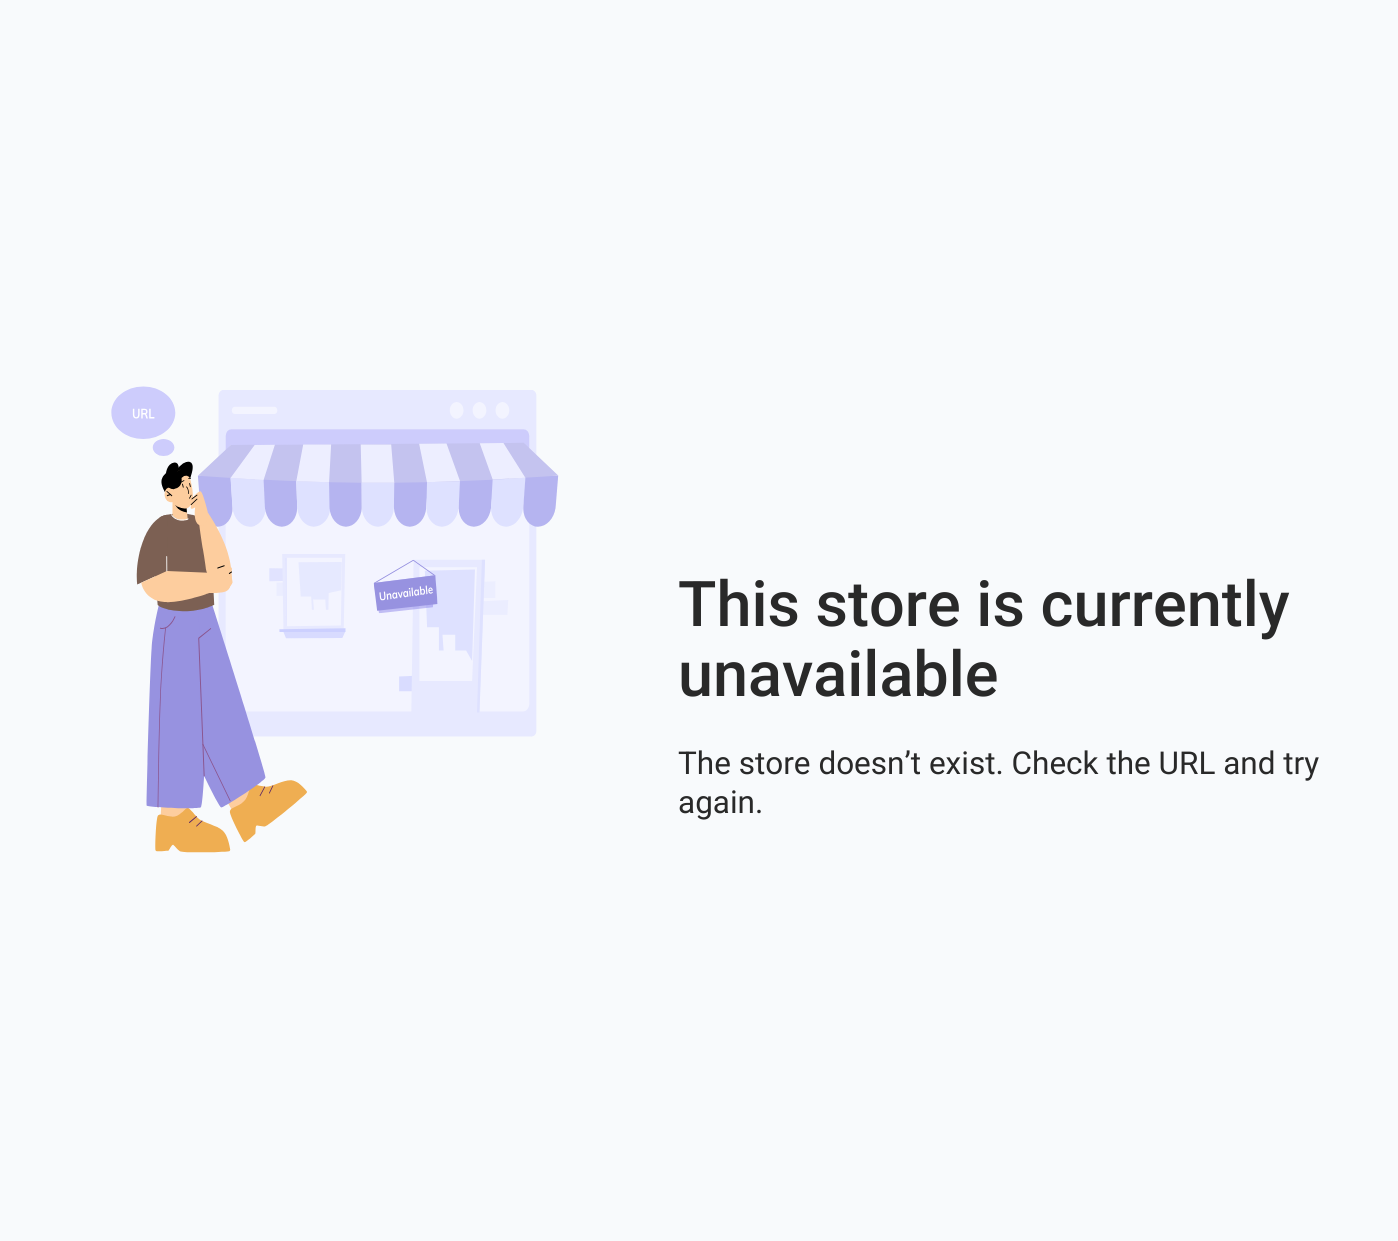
#include <cairo.h>
#include <math.h>
#include <stddef.h>

typedef struct { const char *family; double size; int italic, bold; unsigned color; } style_t;
static cairo_t *ctx;

static void ink(unsigned color) {
    cairo_set_source_rgb(ctx, (color >> 16) / 255.0, (color >> 8 & 255) / 255.0, (color & 255) / 255.0);
}

static void write(double x, double y, const char *s, const style_t *st) {
    cairo_select_font_face(ctx, st->family, st->italic ? CAIRO_FONT_SLANT_ITALIC : CAIRO_FONT_SLANT_NORMAL,
        st->bold ? CAIRO_FONT_WEIGHT_BOLD : CAIRO_FONT_WEIGHT_NORMAL);
    cairo_set_font_size(ctx, st->size);
    ink(st->color);
    cairo_move_to(ctx, x, y);
    cairo_show_text(ctx, s);
}

static void paste(const char *path, double x, double y, double w, double h) {
    cairo_surface_t *image = cairo_image_surface_create_from_png(path);
    cairo_save(ctx);
    cairo_set_source_surface(ctx, image, x, y);
    cairo_rectangle(ctx, x, y, w, h);
    cairo_fill(ctx);
    cairo_restore(ctx);
    cairo_surface_destroy(image);
}

static const style_t s1 = {"Roboto Medium", 63, 0, 0, 0x292929};
static const style_t s2 = {"Roboto", 31.5, 0, 0, 0x292929};

int main(void) {
    cairo_surface_t *surface = cairo_image_surface_create(CAIRO_FORMAT_RGB24, 1398, 1241);
    ctx = cairo_create(surface);
    cairo_font_options_t *options = cairo_font_options_create();
    cairo_font_options_set_hint_metrics(options, CAIRO_HINT_METRICS_OFF);
    cairo_font_options_set_hint_style(options, CAIRO_HINT_STYLE_NONE);
    cairo_set_font_options(ctx, options);
    cairo_set_miter_limit(ctx, 4);
    ink(0xf8fafc);
    cairo_paint(ctx);
    paste("pic1.png", 111, 386, 448, 467);
    write(678, 626, "This store is currently", &s1);
    write(678, 696, "unavailable", &s1);
    write(678, 774, "The store doesn’t exist. Check the URL and try", &s2);
    write(678, 813, "again.", &s2);
    cairo_surface_write_to_png(surface, "screenshot.png");
    cairo_font_options_destroy(options);
    cairo_destroy(ctx);
    cairo_surface_destroy(surface);
    return 0;
}
